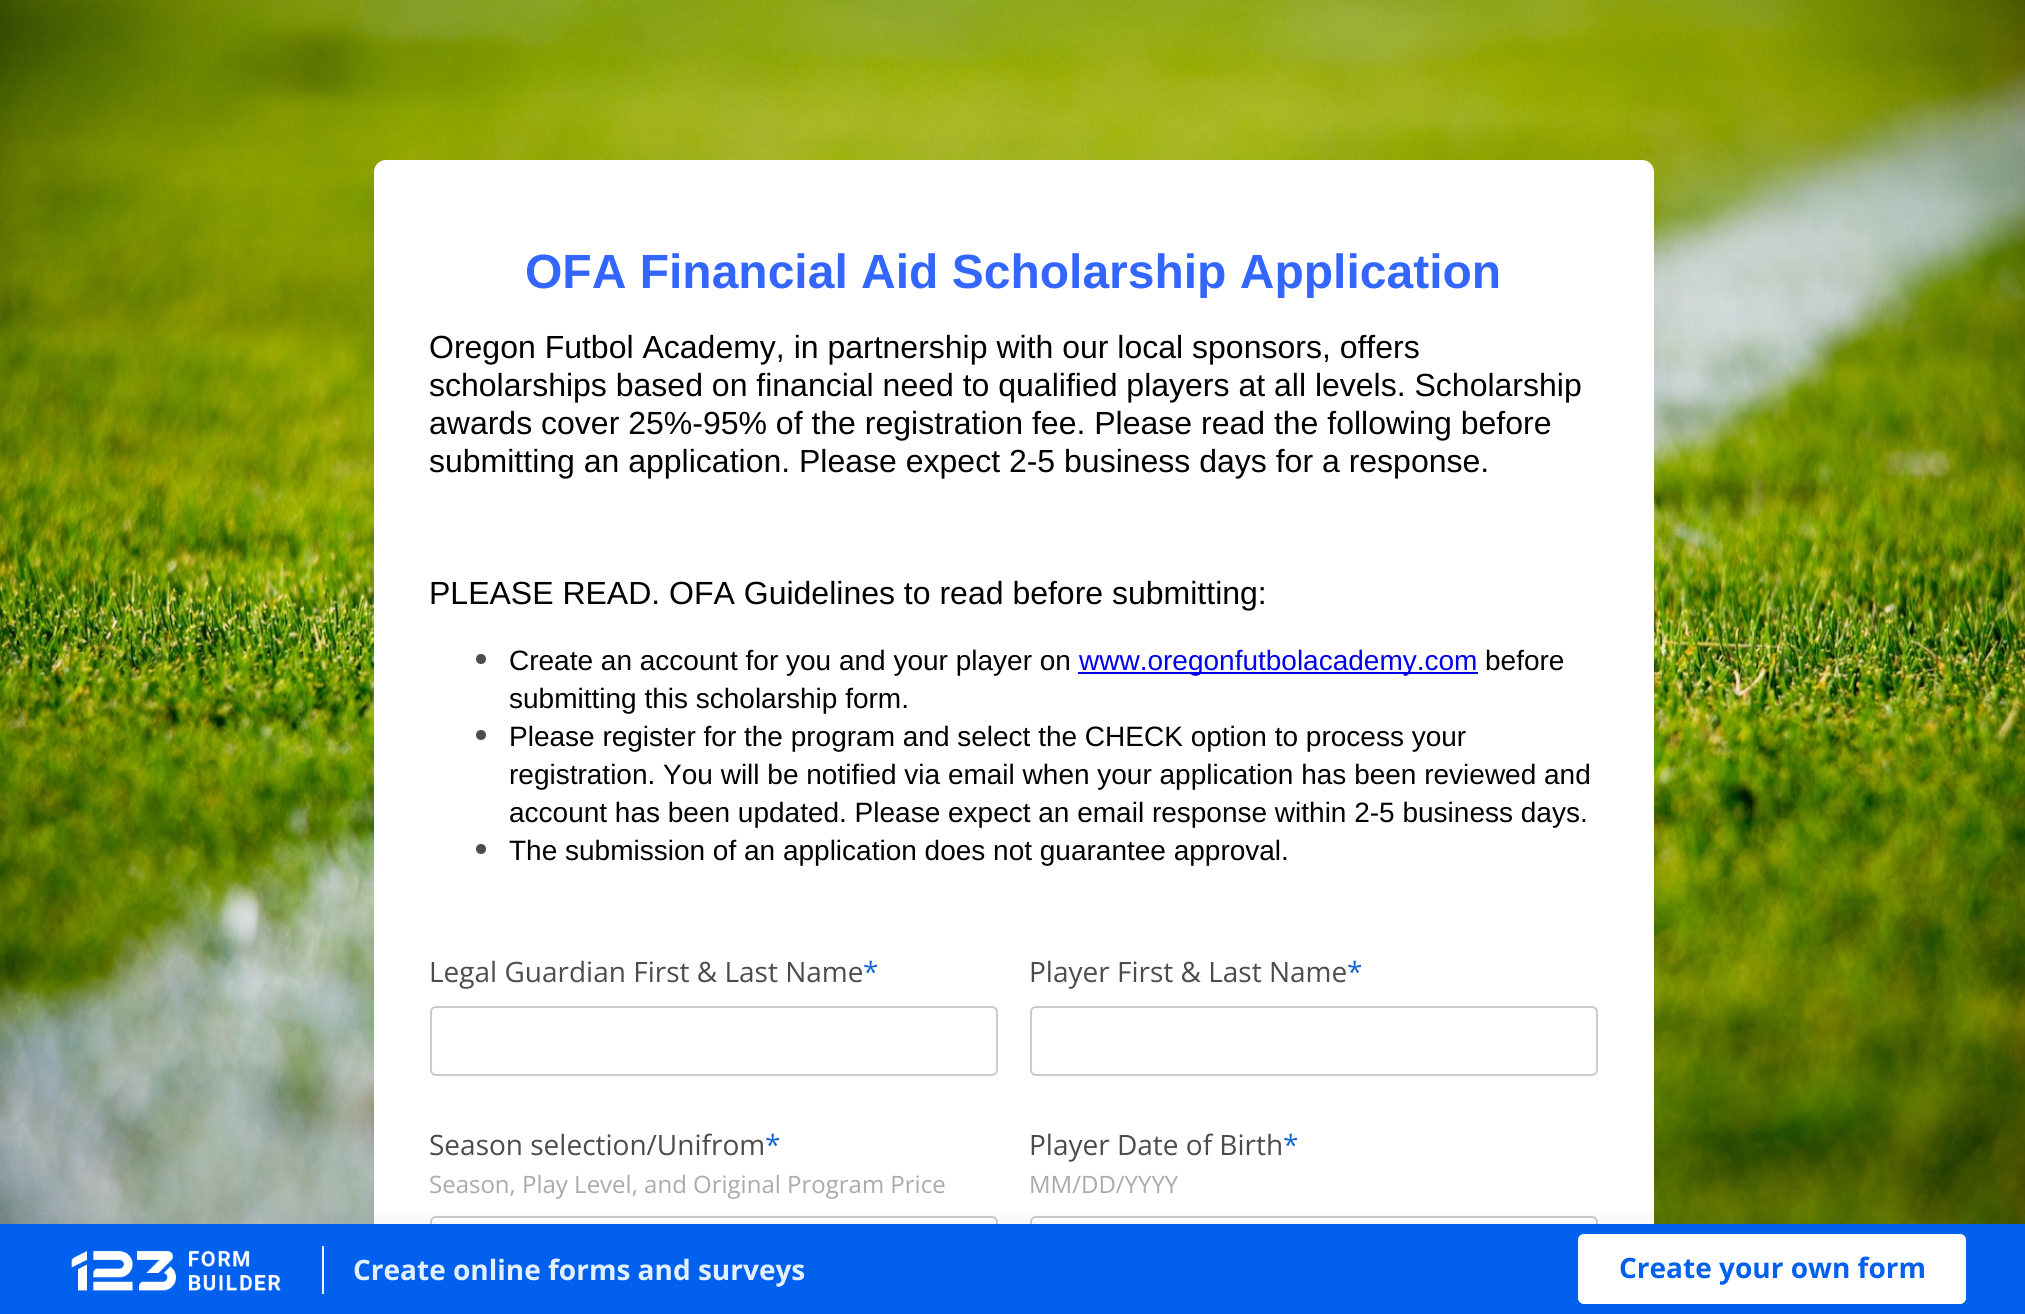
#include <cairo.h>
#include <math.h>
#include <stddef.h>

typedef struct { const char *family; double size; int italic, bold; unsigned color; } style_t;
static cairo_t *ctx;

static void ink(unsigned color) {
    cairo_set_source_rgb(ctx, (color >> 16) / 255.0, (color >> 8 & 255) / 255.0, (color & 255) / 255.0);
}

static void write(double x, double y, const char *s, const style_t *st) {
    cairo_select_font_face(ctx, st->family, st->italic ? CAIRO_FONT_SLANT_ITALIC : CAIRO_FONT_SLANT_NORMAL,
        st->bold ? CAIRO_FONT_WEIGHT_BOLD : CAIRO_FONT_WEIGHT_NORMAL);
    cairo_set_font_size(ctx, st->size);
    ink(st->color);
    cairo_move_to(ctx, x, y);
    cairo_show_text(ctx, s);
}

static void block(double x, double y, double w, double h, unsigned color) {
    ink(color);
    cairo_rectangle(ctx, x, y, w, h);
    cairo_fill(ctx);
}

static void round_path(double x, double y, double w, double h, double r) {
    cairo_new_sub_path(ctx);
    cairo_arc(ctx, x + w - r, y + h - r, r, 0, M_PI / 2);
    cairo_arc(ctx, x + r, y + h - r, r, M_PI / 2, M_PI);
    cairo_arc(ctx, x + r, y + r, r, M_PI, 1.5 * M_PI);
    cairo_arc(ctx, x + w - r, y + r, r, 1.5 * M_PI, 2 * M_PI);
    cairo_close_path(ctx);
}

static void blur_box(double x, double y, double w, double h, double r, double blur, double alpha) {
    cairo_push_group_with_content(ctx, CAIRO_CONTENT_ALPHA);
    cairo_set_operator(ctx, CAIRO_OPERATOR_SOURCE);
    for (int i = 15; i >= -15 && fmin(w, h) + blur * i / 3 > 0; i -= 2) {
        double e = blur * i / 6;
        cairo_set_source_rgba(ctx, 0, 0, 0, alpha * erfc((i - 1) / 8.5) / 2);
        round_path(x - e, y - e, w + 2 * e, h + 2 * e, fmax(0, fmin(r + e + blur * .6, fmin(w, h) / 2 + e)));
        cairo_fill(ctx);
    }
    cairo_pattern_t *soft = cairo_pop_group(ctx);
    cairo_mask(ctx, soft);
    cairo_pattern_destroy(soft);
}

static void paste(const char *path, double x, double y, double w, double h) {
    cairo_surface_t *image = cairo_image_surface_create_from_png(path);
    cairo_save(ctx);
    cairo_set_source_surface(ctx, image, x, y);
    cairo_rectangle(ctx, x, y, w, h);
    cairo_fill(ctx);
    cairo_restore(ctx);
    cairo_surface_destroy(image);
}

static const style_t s1 = {"Liberation Sans", 48, 0, 1, 0x3366ff};
static const style_t s2 = {"Liberation Sans", 32, 0, 0, 0x000000};
static const style_t s3 = {"Liberation Sans", 28, 0, 0, 0x000000};
static const style_t s4 = {"Liberation Sans", 28, 0, 0, 0x0000ee};
static const style_t s5 = {"Open Sans", 28, 0, 0, 0x4c4c4c};
static const style_t s6 = {"Open Sans", 28, 0, 0, 0x1364d1};
static const style_t s7 = {"Open Sans", 24, 0, 0, 0xaaaaaa};
static const style_t s8 = {"Open Sans", 28, 0, 1, 0xe1f2fe};
static const style_t s9 = {"Open Sans", 28, 0, 1, 0x0260ef};

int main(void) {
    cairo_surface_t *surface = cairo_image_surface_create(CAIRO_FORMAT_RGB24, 2025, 1314);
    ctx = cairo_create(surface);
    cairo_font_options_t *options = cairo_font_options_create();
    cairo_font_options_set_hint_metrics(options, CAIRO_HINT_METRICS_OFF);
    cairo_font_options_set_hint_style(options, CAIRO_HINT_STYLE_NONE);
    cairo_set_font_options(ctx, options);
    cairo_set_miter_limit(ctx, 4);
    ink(0xffffff);
    cairo_paint(ctx);
    paste("pic1.png", 0, 0, 2025, 1224);
    ink(0x000000);
    blur_box(374, 190, 1280, 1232, 12, 32, 0.05);
    ink(0xffffff);
    round_path(374, 160, 1280, 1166, 12);
    cairo_fill(ctx);
    write(525, 288, "OFA Financial Aid Scholarship Application", &s1);
    write(429, 358, "Oregon Futbol Academy, in partnership with our local sponsors, offers", &s2);
    write(429, 396, "scholarships based on financial need to qualified players at all levels. Scholarship", &s2);
    write(429, 434, "awards cover 25%-95% of the registration fee. Please read the following before", &s2);
    write(429, 472, "submitting an application. Please expect 2-5 business days for a response.", &s2);
    write(429, 604, "PLEASE READ. OFA Guidelines to read before submitting:", &s2);
    ink(0x4c4c4c);
    cairo_new_path(ctx);
    cairo_arc(ctx, 481, 659, 5, 0, 2 * M_PI);
    cairo_fill(ctx);
    write(509, 670, "Create an account for you and your player on", &s3);
    block(1078, 672, 400, 2, 0x0000ee);
    write(1079, 670, "www.oregonfutbolacademy.com", &s4);
    write(1485, 670, "before", &s3);
    write(509, 708, "submitting this scholarship form.", &s3);
    ink(0x4c4c4c);
    cairo_new_path(ctx);
    cairo_arc(ctx, 481, 735, 5, 0, 2 * M_PI);
    cairo_fill(ctx);
    write(509, 746, "Please register for the program and select the CHECK option to process your", &s3);
    write(509, 784, "registration. You will be notified via email when your application has been reviewed and", &s3);
    write(509, 822, "account has been updated. Please expect an email response within 2-5 business days.", &s3);
    ink(0x4c4c4c);
    cairo_new_path(ctx);
    cairo_arc(ctx, 481, 849, 5, 0, 2 * M_PI);
    cairo_fill(ctx);
    write(509, 860, "The submission of an application does not guarantee approval.", &s3);
    write(429, 982, "Legal Guardian First & Last Name", &s5);
    write(863, 982, "*", &s6);
    round_path(431, 1007, 566, 68, 5);
    ink(0xcccccc);
    cairo_stroke(ctx);
    write(1029, 982, "Player First & Last Name", &s5);
    write(1347, 982, "*", &s6);
    round_path(1031, 1007, 566, 68, 5);
    ink(0xcccccc);
    cairo_stroke(ctx);
    write(429, 1155, "Season selection/Unifrom", &s5);
    write(765, 1155, "*", &s6);
    write(429, 1193, "Season, Play Level, and Original Program Price", &s7);
    round_path(431, 1217, 566, 68, 5);
    ink(0xcccccc);
    cairo_stroke(ctx);
    write(1029, 1155, "Player Date of Birth", &s5);
    write(1283, 1155, "*", &s6);
    write(1029, 1193, "MM/DD/YYYY", &s7);
    round_path(1031, 1217, 566, 68, 5);
    ink(0xcccccc);
    cairo_stroke(ctx);
    ink(0x4c4c4c);
    blur_box(10, 1224, 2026, 90, 0, 10, 0.08);
    block(0, 1224, 2025, 90, 0x0260ef);
    paste("pic2.png", 71, 1250, 210, 41);
    block(322, 1246, 2, 48, 0xf0f0f0);
    write(353, 1280, "Create online forms and surveys", &s8);
    ink(0xffffff);
    round_path(1578, 1234, 388, 70, 6);
    cairo_fill(ctx);
    write(1619, 1278, "Create your own form", &s9);
    cairo_surface_write_to_png(surface, "screenshot.png");
    cairo_font_options_destroy(options);
    cairo_destroy(ctx);
    cairo_surface_destroy(surface);
    return 0;
}
